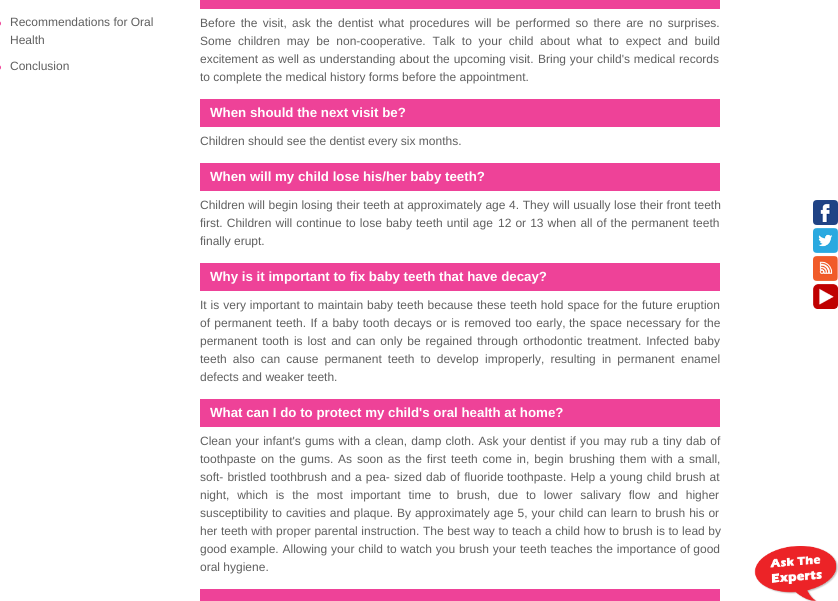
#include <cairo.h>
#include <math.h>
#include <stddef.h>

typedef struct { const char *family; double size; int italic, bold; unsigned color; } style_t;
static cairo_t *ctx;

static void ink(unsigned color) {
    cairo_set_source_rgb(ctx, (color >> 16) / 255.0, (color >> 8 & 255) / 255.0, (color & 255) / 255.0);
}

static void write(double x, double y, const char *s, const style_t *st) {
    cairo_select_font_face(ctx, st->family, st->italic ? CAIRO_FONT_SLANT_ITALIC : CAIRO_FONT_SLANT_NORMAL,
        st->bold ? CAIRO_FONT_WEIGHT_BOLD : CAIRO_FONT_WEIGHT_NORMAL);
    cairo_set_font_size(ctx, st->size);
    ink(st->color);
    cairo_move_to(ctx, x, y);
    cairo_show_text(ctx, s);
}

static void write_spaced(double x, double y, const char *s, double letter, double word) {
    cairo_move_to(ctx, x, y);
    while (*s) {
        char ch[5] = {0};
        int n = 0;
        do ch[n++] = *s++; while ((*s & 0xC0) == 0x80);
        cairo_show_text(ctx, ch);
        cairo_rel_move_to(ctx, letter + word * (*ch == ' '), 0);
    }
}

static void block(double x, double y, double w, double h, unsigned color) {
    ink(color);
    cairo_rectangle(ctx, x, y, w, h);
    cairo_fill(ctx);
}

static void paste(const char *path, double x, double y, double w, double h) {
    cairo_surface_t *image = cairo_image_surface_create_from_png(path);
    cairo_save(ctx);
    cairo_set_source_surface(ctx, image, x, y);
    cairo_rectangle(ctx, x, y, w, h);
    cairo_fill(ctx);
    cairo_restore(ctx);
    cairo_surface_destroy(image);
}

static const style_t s1 = {"Liberation Sans", 12, 0, 0, 0x5f5f5f};
static const style_t s2 = {"Liberation Sans", 13.3, 0, 1, 0xffffff};

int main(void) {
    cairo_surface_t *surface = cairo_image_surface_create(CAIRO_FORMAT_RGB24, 838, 601);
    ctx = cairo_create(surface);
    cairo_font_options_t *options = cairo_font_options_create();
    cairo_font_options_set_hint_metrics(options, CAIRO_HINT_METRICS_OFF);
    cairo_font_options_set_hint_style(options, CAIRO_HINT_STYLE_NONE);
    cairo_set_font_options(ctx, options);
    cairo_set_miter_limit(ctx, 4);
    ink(0xffffff);
    cairo_paint(ctx);
    cairo_arc(ctx, -1.5, 23.5, 2, 0, 2 * M_PI);
    ink(0xee3f96);
    cairo_set_line_width(ctx, 1);
    cairo_stroke(ctx);
    write(10, 26, "Recommendations for Oral", &s1);
    write(10, 44, "Health", &s1);
    cairo_new_path(ctx);
    cairo_arc(ctx, -1.5, 67.5, 2, 0, 2 * M_PI);
    ink(0xee3f96);
    cairo_stroke(ctx);
    write(10, 70, "Conclusion", &s1);
    block(200, 0, 520, 9, 0xee4298);
    ink(0x5f5f5f);
    write_spaced(200, 27, "Before the visit, ask the dentist what procedures will be performed so there are", 0, 2);
    write_spaced(649, 27, "no surprises.", 0, 2);
    write_spaced(200, 45, "Some children may be non-cooperative. Talk to your child about what", 0, 3.4);
    write_spaced(609, 45, "to expect and build", 0, 3.4);
    write_spaced(200, 63, "excitement as well as understanding about the upcoming visit.", 0, 0.5);
    write_spaced(538, 63, "Bring your child's medical records", 0, 0.5);
    write(200, 81, "to complete the medical history forms before the appointment.", &s1);
    block(200, 99, 520, 28, 0xee4298);
    write(210, 117, "When should the next visit be?", &s2);
    write(200, 145, "Children should see the dentist every six months.", &s1);
    block(200, 163, 520, 28, 0xee4298);
    write(210, 181, "When will my child lose his/her baby teeth?", &s2);
    cairo_select_font_face(ctx, "Liberation Sans", CAIRO_FONT_SLANT_NORMAL, CAIRO_FONT_WEIGHT_NORMAL);
    cairo_set_font_size(ctx, 12);
    ink(0x5f5f5f);
    write_spaced(200, 209, "Children will begin losing their teeth at approximately age 4. They will usually lose their front teeth", 0, 0.25);
    write_spaced(200, 227, "first. Children will continue to lose baby teeth until age", 0, 0.75);
    write_spaced(498, 227, "12 or 13 when all of the permanent teeth", 0, 0.75);
    write(200, 245, "finally erupt.", &s1);
    block(200, 263, 520, 28, 0xee4298);
    write(210, 281, "Why is it important to fix baby teeth that have decay?", &s2);
    cairo_select_font_face(ctx, "Liberation Sans", CAIRO_FONT_SLANT_NORMAL, CAIRO_FONT_WEIGHT_NORMAL);
    cairo_set_font_size(ctx, 12);
    ink(0x5f5f5f);
    write_spaced(200, 309, "It is very important to maintain baby teeth because these teeth hold space for the", 0, 0.6);
    write_spaced(642, 309, "future eruption", 0, 0.5);
    write_spaced(200, 327, "of permanent teeth. If a baby tooth decays or is removed too early,", 0, 1);
    write_spaced(569, 327, "the space necessary for the", 0, 1);
    write_spaced(200, 345, "permanent tooth is lost and can only be regained through", 0, 1.6);
    write_spaced(523, 345, "orthodontic treatment. Infected baby", 0, 1.6);
    write_spaced(200, 363, "teeth also can cause permanent teeth to develop", 0, 2.75);
    write_spaced(485, 363, "improperly, resulting in permanent enamel", 0, 2.75);
    write(200, 381, "defects and weaker teeth.", &s1);
    block(200, 399, 520, 28, 0xee4298);
    write(210, 417, "What can I do to protect my child's oral health at home?", &s2);
    cairo_select_font_face(ctx, "Liberation Sans", CAIRO_FONT_SLANT_NORMAL, CAIRO_FONT_WEIGHT_NORMAL);
    cairo_set_font_size(ctx, 12);
    ink(0x5f5f5f);
    write_spaced(200, 445, "Clean your infant's gums with a clean, damp cloth. Ask your dentist if you may rub", 0, 0.9);
    write_spaced(652, 445, "a tiny dab of", 0, 1);
    write_spaced(200, 463, "toothpaste on the gums. As soon as the first teeth come in, begin", 0, 1.5);
    write_spaced(569, 463, "brushing them with a small,", 0, 1.5);
    write_spaced(200, 481, "soft- bristled toothbrush and a pea- sized dab of fluoride", 0, 0.75);
    write_spaced(507, 481, "toothpaste. Help a young child brush at", 0, 0.75);
    write_spaced(200, 499, "night, which is the most important time", 0, 4.5);
    write_spaced(439, 499, "to brush, due to lower salivary flow and higher", 0, 4.5);
    write_spaced(200, 517, "susceptibility to cavities and plaque.", 0, 0.6);
    write_spaced(397, 517, "By approximately age 5, your child can learn to brush his or", 0, 0.6);
    write_spaced(200, 535, "her teeth with proper parental instruction. The best way to teach a child how to brush is to lead by", 0, 0.25);
    write(200, 553, "good", &s1);
    write_spaced(230, 553, "example. Allowing your child to watch you brush your teeth teaches the importance", 0, 0.5);
    write(680, 553, "of good", &s1);
    write(200, 571, "oral hygiene.", &s1);
    block(200, 589, 520, 12, 0xee4298);
    paste("pic1.png", 813, 200, 25, 25);
    paste("pic2.png", 813, 228, 25, 25);
    paste("pic3.png", 813, 256, 25, 25);
    paste("pic4.png", 813, 284, 25, 25);
    paste("pic5.png", 754, 546, 84, 55);
    cairo_surface_write_to_png(surface, "screenshot.png");
    cairo_font_options_destroy(options);
    cairo_destroy(ctx);
    cairo_surface_destroy(surface);
    return 0;
}
